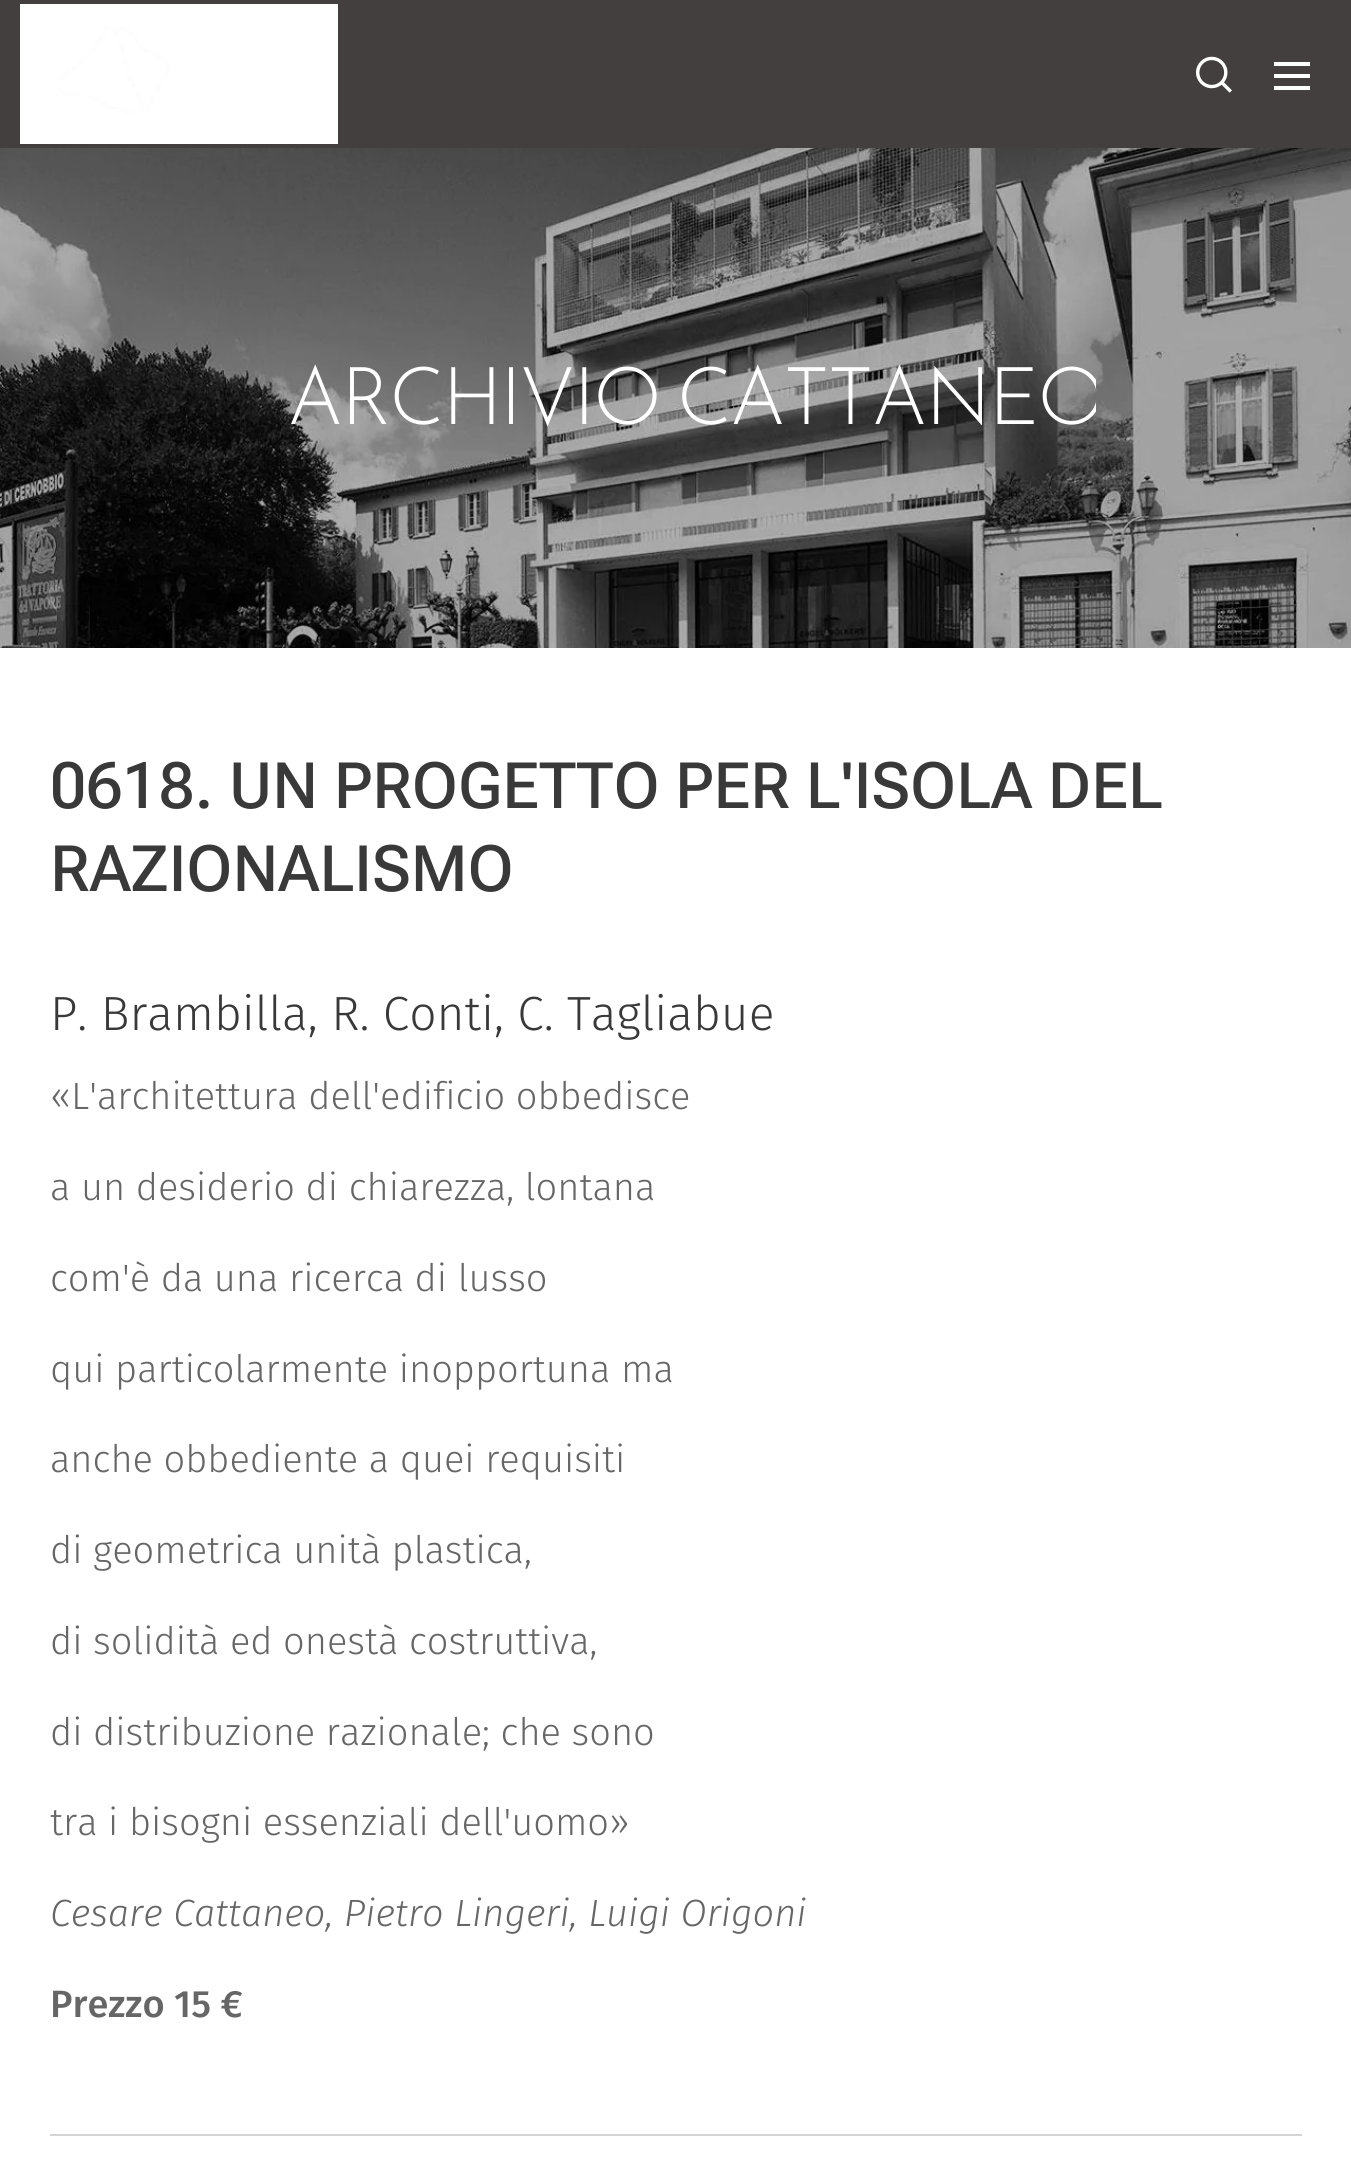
#include <cairo.h>
#include <math.h>
#include <stddef.h>

typedef struct { const char *family; double size; int italic, bold; unsigned color; } style_t;
static cairo_t *ctx;

static void ink(unsigned color) {
    cairo_set_source_rgb(ctx, (color >> 16) / 255.0, (color >> 8 & 255) / 255.0, (color & 255) / 255.0);
}

static void write(double x, double y, const char *s, const style_t *st) {
    cairo_select_font_face(ctx, st->family, st->italic ? CAIRO_FONT_SLANT_ITALIC : CAIRO_FONT_SLANT_NORMAL,
        st->bold ? CAIRO_FONT_WEIGHT_BOLD : CAIRO_FONT_WEIGHT_NORMAL);
    cairo_set_font_size(ctx, st->size);
    ink(st->color);
    cairo_move_to(ctx, x, y);
    cairo_show_text(ctx, s);
}

static void write_spaced(double x, double y, const char *s, double letter, double word) {
    cairo_move_to(ctx, x, y);
    while (*s) {
        char ch[5] = {0};
        int n = 0;
        do ch[n++] = *s++; while ((*s & 0xC0) == 0x80);
        cairo_show_text(ctx, ch);
        cairo_rel_move_to(ctx, letter + word * (*ch == ' '), 0);
    }
}

static void block(double x, double y, double w, double h, unsigned color) {
    ink(color);
    cairo_rectangle(ctx, x, y, w, h);
    cairo_fill(ctx);
}

static void paste(const char *path, double x, double y, double w, double h) {
    cairo_surface_t *image = cairo_image_surface_create_from_png(path);
    cairo_save(ctx);
    cairo_set_source_surface(ctx, image, x, y);
    cairo_rectangle(ctx, x, y, w, h);
    cairo_fill(ctx);
    cairo_restore(ctx);
    cairo_surface_destroy(image);
}

static const style_t s1 = {"Roboto Flex Medium", 64, 0, 0, 0x393939};
static const style_t s2 = {"Fira Sans Light", 48, 0, 0, 0x393939};
static const style_t s3 = {"Fira Sans Light", 38, 0, 0, 0x666666};
static const style_t s4 = {"Fira Sans Light", 38, 1, 0, 0x666666};
static const style_t s5 = {"Fira Sans Medium", 38, 0, 0, 0x666666};

int main(void) {
    cairo_surface_t *surface = cairo_image_surface_create(CAIRO_FORMAT_RGB24, 1351, 2184);
    ctx = cairo_create(surface);
    cairo_font_options_t *options = cairo_font_options_create();
    cairo_font_options_set_hint_metrics(options, CAIRO_HINT_METRICS_OFF);
    cairo_font_options_set_hint_style(options, CAIRO_HINT_STYLE_NONE);
    cairo_set_font_options(ctx, options);
    cairo_set_miter_limit(ctx, 4);
    ink(0xffffff);
    cairo_paint(ctx);
    block(0, 0, 1351, 148, 0x443f3f);
    block(20, 4, 318, 140, 0xffffff);
    paste("pic1.png", 56, 26, 115, 89);
    paste("pic2.png", 1196, 56, 36, 37);
    block(1274, 74, 36, 4, 0xffffff);
    block(1274, 62, 36, 4, 0xffffff);
    block(1274, 86, 36, 4, 0xffffff);
    paste("pic3.png", 0, 148, 1351, 500);
    cairo_save(ctx);
    cairo_rectangle(ctx, 256, 328, 840, 140);
    cairo_clip(ctx);
    cairo_select_font_face(ctx, "Josefin Sans Light", CAIRO_FONT_SLANT_NORMAL, CAIRO_FONT_WEIGHT_NORMAL);
    cairo_set_font_size(ctx, 80);
    write_spaced(287, 424, "ARCHIVIO CATTANEO", -2.4, -5);
    cairo_restore(ctx);
    write(50, 808, "0618. UN PROGETTO PER L'ISOLA DEL", &s1);
    write(50, 891, "RAZIONALISMO", &s1);
    write(50, 1030, "P. Brambilla, R. Conti, C. Tagliabue", &s2);
    write(50, 1109, "«L'architettura dell'edificio obbedisce", &s3);
    write(50, 1200, "a un desiderio di chiarezza, lontana", &s3);
    write(50, 1291, "com'è da una ricerca di lusso", &s3);
    write(50, 1382, "qui particolarmente inopportuna ma", &s3);
    write(50, 1472, "anche obbediente a quei requisiti", &s3);
    write(50, 1563, "di geometrica unità plastica,", &s3);
    write(50, 1654, "di solidità ed onestà costruttiva,", &s3);
    write(50, 1745, "di distribuzione razionale; che sono", &s3);
    write(50, 1835, "tra i bisogni essenziali dell'uomo»", &s3);
    write(50, 1926, "Cesare Cattaneo, Pietro Lingeri, Luigi Origoni", &s4);
    write(50, 2017, "Prezzo 15 €", &s5);
    block(50, 2134, 1252, 2, 0xd4d4d4);
    cairo_surface_write_to_png(surface, "screenshot.png");
    cairo_font_options_destroy(options);
    cairo_destroy(ctx);
    cairo_surface_destroy(surface);
    return 0;
}
